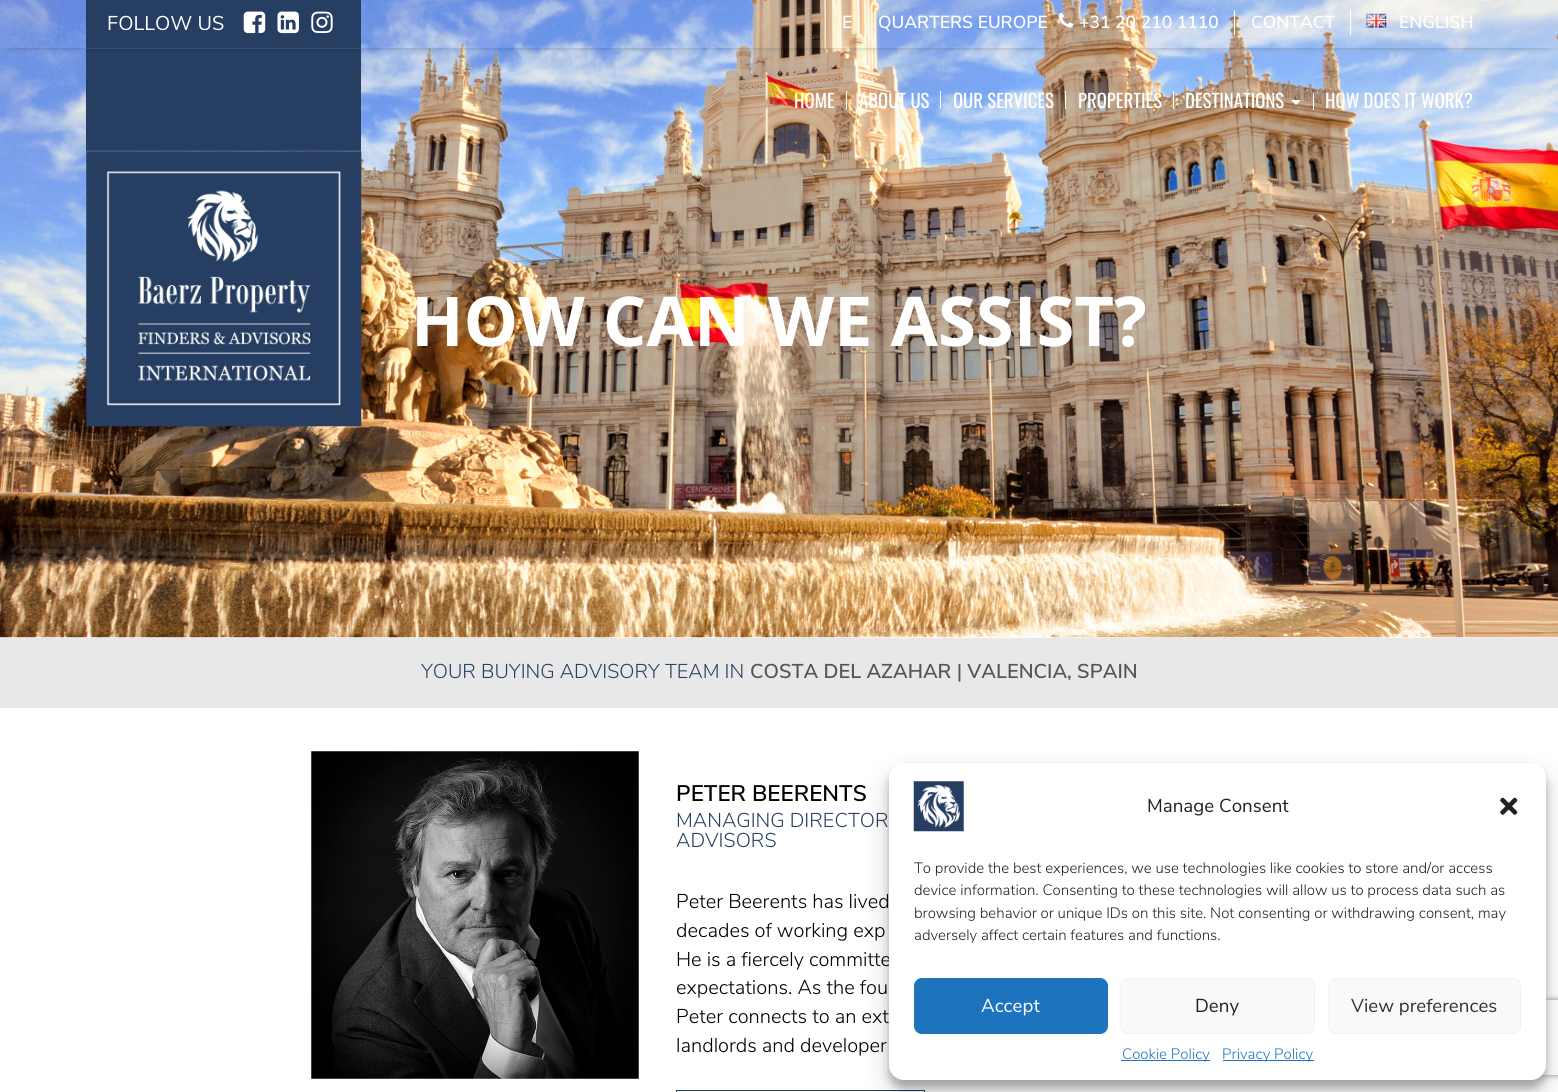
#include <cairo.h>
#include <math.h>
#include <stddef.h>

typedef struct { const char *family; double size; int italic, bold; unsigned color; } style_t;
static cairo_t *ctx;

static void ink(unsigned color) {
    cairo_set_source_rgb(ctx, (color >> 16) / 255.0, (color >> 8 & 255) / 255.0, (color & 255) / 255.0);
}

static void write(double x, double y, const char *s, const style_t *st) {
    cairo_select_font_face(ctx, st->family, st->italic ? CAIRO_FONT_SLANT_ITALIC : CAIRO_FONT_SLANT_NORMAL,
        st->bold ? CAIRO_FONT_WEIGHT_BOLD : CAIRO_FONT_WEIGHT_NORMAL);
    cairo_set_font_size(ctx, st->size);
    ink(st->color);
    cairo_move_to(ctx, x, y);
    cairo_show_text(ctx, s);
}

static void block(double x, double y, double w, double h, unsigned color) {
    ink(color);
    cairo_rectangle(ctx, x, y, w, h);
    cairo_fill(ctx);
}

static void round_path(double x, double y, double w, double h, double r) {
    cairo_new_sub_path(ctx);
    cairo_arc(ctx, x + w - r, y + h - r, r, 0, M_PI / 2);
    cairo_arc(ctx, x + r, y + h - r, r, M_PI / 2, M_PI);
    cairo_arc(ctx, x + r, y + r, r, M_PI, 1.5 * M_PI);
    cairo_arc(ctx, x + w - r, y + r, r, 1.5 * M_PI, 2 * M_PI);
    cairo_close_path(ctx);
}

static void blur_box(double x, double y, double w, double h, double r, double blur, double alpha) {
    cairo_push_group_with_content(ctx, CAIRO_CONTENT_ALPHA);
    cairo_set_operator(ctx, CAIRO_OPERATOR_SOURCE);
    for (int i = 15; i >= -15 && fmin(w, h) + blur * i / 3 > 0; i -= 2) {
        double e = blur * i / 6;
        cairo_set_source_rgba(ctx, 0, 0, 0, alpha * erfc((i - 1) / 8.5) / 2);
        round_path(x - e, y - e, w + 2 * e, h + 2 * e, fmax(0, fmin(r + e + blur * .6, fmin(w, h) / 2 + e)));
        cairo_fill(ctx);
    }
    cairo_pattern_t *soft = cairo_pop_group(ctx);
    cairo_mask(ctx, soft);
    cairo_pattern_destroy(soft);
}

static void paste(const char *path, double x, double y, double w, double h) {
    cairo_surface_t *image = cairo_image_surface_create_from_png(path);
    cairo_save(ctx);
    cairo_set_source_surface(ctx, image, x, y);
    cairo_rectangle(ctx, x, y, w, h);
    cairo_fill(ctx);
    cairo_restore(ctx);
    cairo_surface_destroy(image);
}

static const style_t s1 = {"Nunito Sans", 20, 0, 0, 0xffffff};
static const style_t s2 = {"Nunito Sans SemiBold", 17.5, 0, 0, 0xffffff};
static const style_t s3 = {"Oswald", 18.75, 0, 0, 0xffffff};
static const style_t s4 = {"Open Sans", 68.75, 0, 1, 0xffffff};
static const style_t s5 = {"Nunito Sans Light", 20, 0, 0, 0x263e61};
static const style_t s6 = {"Nunito Sans SemiBold", 20, 0, 0, 0x555555};
static const style_t s7 = {"Nunito Sans SemiBold", 22.5, 0, 0, 0x000000};
static const style_t s8 = {"Nunito Sans Light", 20, 0, 0, 0x000000};
static const style_t s9 = {"Nunito Sans", 18.75, 0, 0, 0x222222};
static const style_t s10 = {"Nunito Sans Light", 15, 0, 0, 0x222222};
static const style_t s11 = {"Nunito Sans", 18.75, 0, 0, 0xffffff};
static const style_t s12 = {"Nunito Sans", 18.75, 0, 0, 0x333333};
static const style_t s13 = {"Nunito Sans Light", 15, 0, 0, 0x1e73be};

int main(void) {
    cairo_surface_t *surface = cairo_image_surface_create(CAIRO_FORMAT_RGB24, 1558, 1092);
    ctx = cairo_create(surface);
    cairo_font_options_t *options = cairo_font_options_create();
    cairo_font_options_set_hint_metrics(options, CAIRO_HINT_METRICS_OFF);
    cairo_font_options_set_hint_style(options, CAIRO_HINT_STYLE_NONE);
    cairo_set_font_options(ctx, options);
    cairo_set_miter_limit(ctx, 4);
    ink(0xffffff);
    cairo_paint(ctx);
    paste("pic7.png", 0, 0, 1558, 638);
    block(86, 49, 275, 101, 0x263e61);
    cairo_save(ctx);
    cairo_set_fill_rule(ctx, CAIRO_FILL_RULE_EVEN_ODD);
    cairo_new_path(ctx);
    cairo_move_to(ctx, 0, 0);
    cairo_line_to(ctx, 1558, 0);
    cairo_line_to(ctx, 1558, 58);
    cairo_line_to(ctx, 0, 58);
    cairo_close_path(ctx);
    cairo_move_to(ctx, 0, 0);
    cairo_line_to(ctx, 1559, 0);
    cairo_line_to(ctx, 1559, 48);
    cairo_line_to(ctx, 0, 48);
    cairo_close_path(ctx);
    cairo_clip(ctx);
    ink(0x000000);
    blur_box(9, 13, 1541, 30, 0, 4.5, 1);
    cairo_restore(ctx);
    block(86, 0, 275, 48, 0x263e61);
    block(86, 48, 275, 1, 0x384f72);
    write(107, 30, "FOLLOW US", &s1);
    paste("pic1.png", 243, 11, 23, 23);
    paste("pic2.png", 277, 11, 22, 23);
    paste("pic3.png", 311, 11, 22, 22);
    block(1234, 10, 1, 25, 0xffffff);
    write(842, 28, "E", &s2);
    write(878, 28, "QUARTERS EUROPE", &s2);
    paste("pic4.png", 1058, 12, 16, 16);
    write(1079, 28, "+31 20 210 1110", &s2);
    block(1350, 10, 1, 25, 0xffffff);
    write(1251, 28, "CONTACT", &s2);
    paste("pic5.png", 1366, 13, 21, 15);
    write(1399, 28, "ENGLISH", &s2);
    write(794, 108, "HOME", &s3);
    block(846, 91, 1, 18, 0xffffff);
    write(859, 108, "ABOUT US", &s3);
    block(940, 91, 1, 18, 0xffffff);
    write(953, 108, "OUR SERVICES", &s3);
    block(1065, 91, 1, 18, 0xffffff);
    write(1078, 108, "PROPERTIES", &s3);
    block(1173, 91, 1, 18, 0xffffff);
    write(1185, 108, "DESTINATIONS", &s3);
    cairo_new_path(ctx);
    cairo_move_to(ctx, 1291, 100);
    cairo_line_to(ctx, 1301, 100);
    cairo_line_to(ctx, 1296, 105);
    cairo_close_path(ctx);
    cairo_fill(ctx);
    block(1313, 93, 1, 17, 0xffffff);
    write(1325, 108, "HOW DOES IT WORK?", &s3);
    block(86, 150, 275, 1, 0x384f72);
    paste("pic6.png", 86, 151, 276, 276);
    write(411, 346, "HOW CAN WE ASSIST?", &s4);
    block(0, 638, 1558, 70, 0xe8e8e8);
    write(421, 678, "YOUR BUYING ADVISORY TEAM IN", &s5);
    write(750, 678, "COSTA DEL AZAHAR | VALENCIA, SPAIN", &s6);
    paste("pic8.png", 311, 751, 328, 328);
    write(676, 801, "PETER BEERENTS", &s7);
    write(676, 827, "MANAGING DIRECTOR", &s5);
    write(676, 847, "ADVISORS", &s5);
    write(676, 908, "Peter Beerents has lived", &s8);
    write(676, 937, "decades of working exp", &s8);
    write(676, 966, "He is a fiercely committe", &s8);
    write(676, 994, "expectations. As the fou", &s8);
    write(676, 1023, "Peter connects to an ext", &s8);
    write(676, 1052, "landlords and developer", &s8);
    cairo_rectangle(ctx, 676.5, 1090.5, 248, 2);
    ink(0x263e61);
    cairo_set_line_width(ctx, 1);
    cairo_stroke(ctx);
    ink(0x000000);
    blur_box(889, 770, 657, 318, 15, 4, 0.23);
    blur_box(889, 775, 657, 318, 15, 12.5, 0.19);
    cairo_save(ctx);
    cairo_set_fill_rule(ctx, CAIRO_FILL_RULE_EVEN_ODD);
    cairo_new_path(ctx);
    cairo_move_to(ctx, 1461, 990);
    cairo_line_to(ctx, 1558, 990);
    cairo_line_to(ctx, 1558, 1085);
    cairo_line_to(ctx, 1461, 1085);
    cairo_close_path(ctx);
    cairo_move_to(ctx, 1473.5, 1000);
    cairo_line_to(ctx, 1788.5, 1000);
    cairo_curve_to(ctx, 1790, 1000, 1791, 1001, 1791, 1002.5);
    cairo_line_to(ctx, 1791, 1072.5);
    cairo_curve_to(ctx, 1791, 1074, 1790, 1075, 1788.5, 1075);
    cairo_line_to(ctx, 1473.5, 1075);
    cairo_curve_to(ctx, 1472, 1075, 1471, 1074, 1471, 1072.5);
    cairo_line_to(ctx, 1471, 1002.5);
    cairo_curve_to(ctx, 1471, 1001, 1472, 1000, 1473.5, 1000);
    cairo_close_path(ctx);
    cairo_clip(ctx);
    ink(0x808080);
    blur_box(1471, 1000, 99, 75, 2.5, 3, 1);
    cairo_restore(ctx);
    ink(0xffffff);
    round_path(889, 763, 657, 317, 15);
    cairo_fill(ctx);
    paste("pic9.png", 913, 781, 51, 51);
    write(1147, 812, "Manage Consent", &s9);
    paste("pic10.png", 1500, 797, 18, 18);
    write(914, 873, "To provide the best experiences, we use technologies like cookies to store and/or access", &s10);
    write(914, 895, "device information. Consenting to these technologies will allow us to process data such as", &s10);
    write(914, 918, "browsing behavior or unique IDs on this site. Not consenting or withdrawing consent, may", &s10);
    write(914, 940, "adversely affect certain features and functions.", &s10);
    ink(0x1e73be);
    round_path(914.5, 978.5, 193, 55, 7.5);
    cairo_fill_preserve(ctx);
    cairo_stroke(ctx);
    write(981, 1012, "Accept", &s11);
    ink(0xf9f9f9);
    round_path(1120.5, 978.5, 194, 55, 7.5);
    cairo_fill_preserve(ctx);
    ink(0xf2f2f2);
    cairo_stroke(ctx);
    write(1195, 1012, "Deny", &s9);
    ink(0xf9f9f9);
    round_path(1328.5, 978.5, 192, 55, 7.5);
    cairo_fill_preserve(ctx);
    ink(0xf2f2f2);
    cairo_stroke(ctx);
    write(1351, 1012, "View preferences", &s12);
    block(1121, 1060, 89, 1, 0x1e73be);
    write(1122, 1059, "Cookie Policy", &s13);
    block(1223, 1060, 91, 1, 0x1e73be);
    write(1222, 1059, "Privacy Policy", &s13);
    cairo_surface_write_to_png(surface, "screenshot.png");
    cairo_font_options_destroy(options);
    cairo_destroy(ctx);
    cairo_surface_destroy(surface);
    return 0;
}
